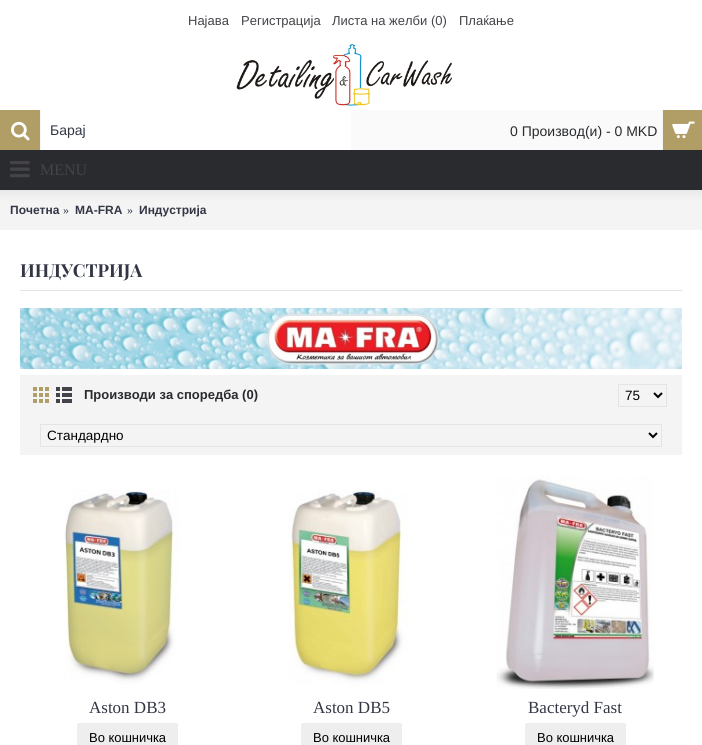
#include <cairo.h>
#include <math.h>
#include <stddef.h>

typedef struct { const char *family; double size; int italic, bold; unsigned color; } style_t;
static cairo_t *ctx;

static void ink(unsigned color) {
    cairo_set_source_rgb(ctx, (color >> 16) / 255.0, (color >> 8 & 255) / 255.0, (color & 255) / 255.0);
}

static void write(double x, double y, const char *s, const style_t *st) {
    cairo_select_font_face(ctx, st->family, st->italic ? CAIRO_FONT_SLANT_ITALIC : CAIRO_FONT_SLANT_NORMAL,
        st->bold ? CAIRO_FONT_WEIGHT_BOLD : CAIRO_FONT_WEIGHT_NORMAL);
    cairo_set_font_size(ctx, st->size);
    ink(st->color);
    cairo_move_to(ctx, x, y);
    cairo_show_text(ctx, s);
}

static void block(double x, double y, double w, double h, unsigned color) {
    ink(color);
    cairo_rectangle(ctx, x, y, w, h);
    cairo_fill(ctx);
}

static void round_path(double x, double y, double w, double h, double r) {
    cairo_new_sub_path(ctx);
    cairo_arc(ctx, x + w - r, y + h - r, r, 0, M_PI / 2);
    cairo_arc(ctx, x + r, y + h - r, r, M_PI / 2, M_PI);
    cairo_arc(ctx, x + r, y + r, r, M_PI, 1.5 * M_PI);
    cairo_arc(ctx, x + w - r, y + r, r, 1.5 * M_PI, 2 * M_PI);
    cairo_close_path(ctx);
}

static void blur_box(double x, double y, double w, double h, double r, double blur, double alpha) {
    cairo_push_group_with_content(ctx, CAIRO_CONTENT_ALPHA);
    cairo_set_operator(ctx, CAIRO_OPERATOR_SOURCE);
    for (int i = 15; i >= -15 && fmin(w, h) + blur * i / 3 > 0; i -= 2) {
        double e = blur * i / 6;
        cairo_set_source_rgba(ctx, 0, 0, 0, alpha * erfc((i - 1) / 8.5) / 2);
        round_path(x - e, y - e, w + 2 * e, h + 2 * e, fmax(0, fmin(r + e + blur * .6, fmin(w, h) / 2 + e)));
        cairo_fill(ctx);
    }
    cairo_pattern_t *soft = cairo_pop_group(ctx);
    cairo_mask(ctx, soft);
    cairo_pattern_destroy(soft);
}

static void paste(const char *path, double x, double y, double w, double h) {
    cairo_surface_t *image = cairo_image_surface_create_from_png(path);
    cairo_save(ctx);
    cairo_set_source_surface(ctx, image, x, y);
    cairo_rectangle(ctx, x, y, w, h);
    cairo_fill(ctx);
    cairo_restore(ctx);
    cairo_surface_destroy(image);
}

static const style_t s1 = {"Liberation Sans", 13, 0, 0, 0x444349};
static const style_t s2 = {"Liberation Sans", 14, 0, 0, 0x333745};
static const style_t s3 = {"Liberation Sans", 14, 0, 0, 0x2a2b2e};
static const style_t s4 = {"Liberation Serif", 16, 0, 0, 0x444349};
static const style_t s5 = {"Liberation Sans", 12, 0, 1, 0x333745};
static const style_t s6 = {"Liberation Serif", 12, 0, 0, 0x333745};
static const style_t s7 = {"Playfair Display", 18, 0, 1, 0x333745};
static const style_t s8 = {"Liberation Sans", 13, 0, 1, 0x2a2b2e};
static const style_t s9 = {"Liberation Sans", 13.5, 0, 0, 0x000000};
static const style_t s10 = {"Liberation Serif", 17, 0, 0, 0x333745};
static const style_t s11 = {"Liberation Sans", 13, 0, 0, 0x000000};

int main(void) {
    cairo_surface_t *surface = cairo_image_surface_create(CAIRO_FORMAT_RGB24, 702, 745);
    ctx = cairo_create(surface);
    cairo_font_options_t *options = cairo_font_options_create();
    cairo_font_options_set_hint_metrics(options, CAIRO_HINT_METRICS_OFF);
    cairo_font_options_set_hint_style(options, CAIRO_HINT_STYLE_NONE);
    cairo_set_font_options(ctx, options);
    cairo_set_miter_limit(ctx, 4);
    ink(0xffffff);
    cairo_paint(ctx);
    block(0, 190, 702, 40, 0xf4f4f4);
    ink(0x000000);
    blur_box(0, 1, 702, 190, 0, 6, 0.1);
    block(0, 0, 702, 110, 0xffffff);
    write(188, 25, "Најава", &s1);
    write(241, 25, "Регистрација", &s1);
    write(332, 25, "Листа на желби (0)", &s1);
    write(459, 25, "Плаќање", &s1);
    paste("pic1.png", 236, 43, 217, 63);
    block(0, 110, 40, 40, 0xb09e66);
    block(40, 110, 1, 40, 0xf4f4f4);
    paste("pic2.png", 11, 121, 19, 20);
    block(41, 110, 310, 40, 0xffffff);
    write(50, 135, "Барај", &s2);
    block(351, 110, 311, 40, 0xfafafa);
    write(510, 136, "0 Производ(и) - 0 MKD", &s3);
    block(663, 110, 39, 40, 0xb09e66);
    block(662, 110, 1, 40, 0xf4f4f4);
    paste("pic3.png", 672, 121, 23, 18);
    block(0, 150, 702, 40, 0x2a2b2e);
    paste("pic4.png", 10, 161, 20, 17);
    write(40, 175, "MENU", &s4);
    write(10, 214, "Почетна", &s5);
    write(63, 214, "»", &s6);
    write(75, 214, "MA-FRA", &s5);
    write(127, 214, "»", &s6);
    write(139, 214, "Индустрија", &s5);
    block(20, 290, 662, 1, 0xe4e4e4);
    write(20, 277, "ИНДУСТРИЈА", &s7);
    paste("pic5.png", 20, 308, 662, 61);
    block(20, 375, 662, 80, 0xf4f4f4);
    paste("pic6.png", 33, 387, 16, 16);
    paste("pic7.png", 56, 387, 16, 16);
    write(84, 399, "Производи за споредба (0)", &s8);
    cairo_rectangle(ctx, 618.5, 384.5, 48, 22);
    ink(0xe4e4e4);
    cairo_set_line_width(ctx, 1);
    cairo_stroke(ctx);
    cairo_new_path(ctx);
    cairo_move_to(ctx, 654, 393);
    cairo_line_to(ctx, 658, 397);
    cairo_line_to(ctx, 662, 393);
    ink(0x000000);
    cairo_set_line_width(ctx, 2);
    cairo_stroke(ctx);
    write(625, 400, "75", &s9);
    cairo_rectangle(ctx, 40.5, 424.5, 621, 22);
    ink(0xe4e4e4);
    cairo_set_line_width(ctx, 1);
    cairo_stroke(ctx);
    cairo_new_path(ctx);
    cairo_move_to(ctx, 649, 433);
    cairo_line_to(ctx, 653, 437);
    cairo_line_to(ctx, 657, 433);
    ink(0x000000);
    cairo_set_line_width(ctx, 2);
    cairo_stroke(ctx);
    write(47, 440, "Стандардно", &s9);
    paste("pic8.png", 64, 489, 117, 196);
    write(89, 713, "Aston DB3", &s10);
    ink(0xeeeeee);
    round_path(77, 723, 101, 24, 2);
    cairo_fill(ctx);
    write(89, 742, "Во кошничка", &s11);
    paste("pic9.png", 289, 490, 120, 195);
    write(313, 713, "Aston DB5", &s10);
    ink(0xeeeeee);
    round_path(301, 723, 101, 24, 2);
    cairo_fill(ctx);
    write(313, 742, "Во кошничка", &s11);
    paste("pic10.png", 496, 475, 158, 214);
    write(528, 713, "Bacteryd Fast", &s10);
    ink(0xeeeeee);
    round_path(525, 723, 101, 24, 2);
    cairo_fill(ctx);
    write(537, 742, "Во кошничка", &s11);
    cairo_surface_write_to_png(surface, "screenshot.png");
    cairo_font_options_destroy(options);
    cairo_destroy(ctx);
    cairo_surface_destroy(surface);
    return 0;
}
